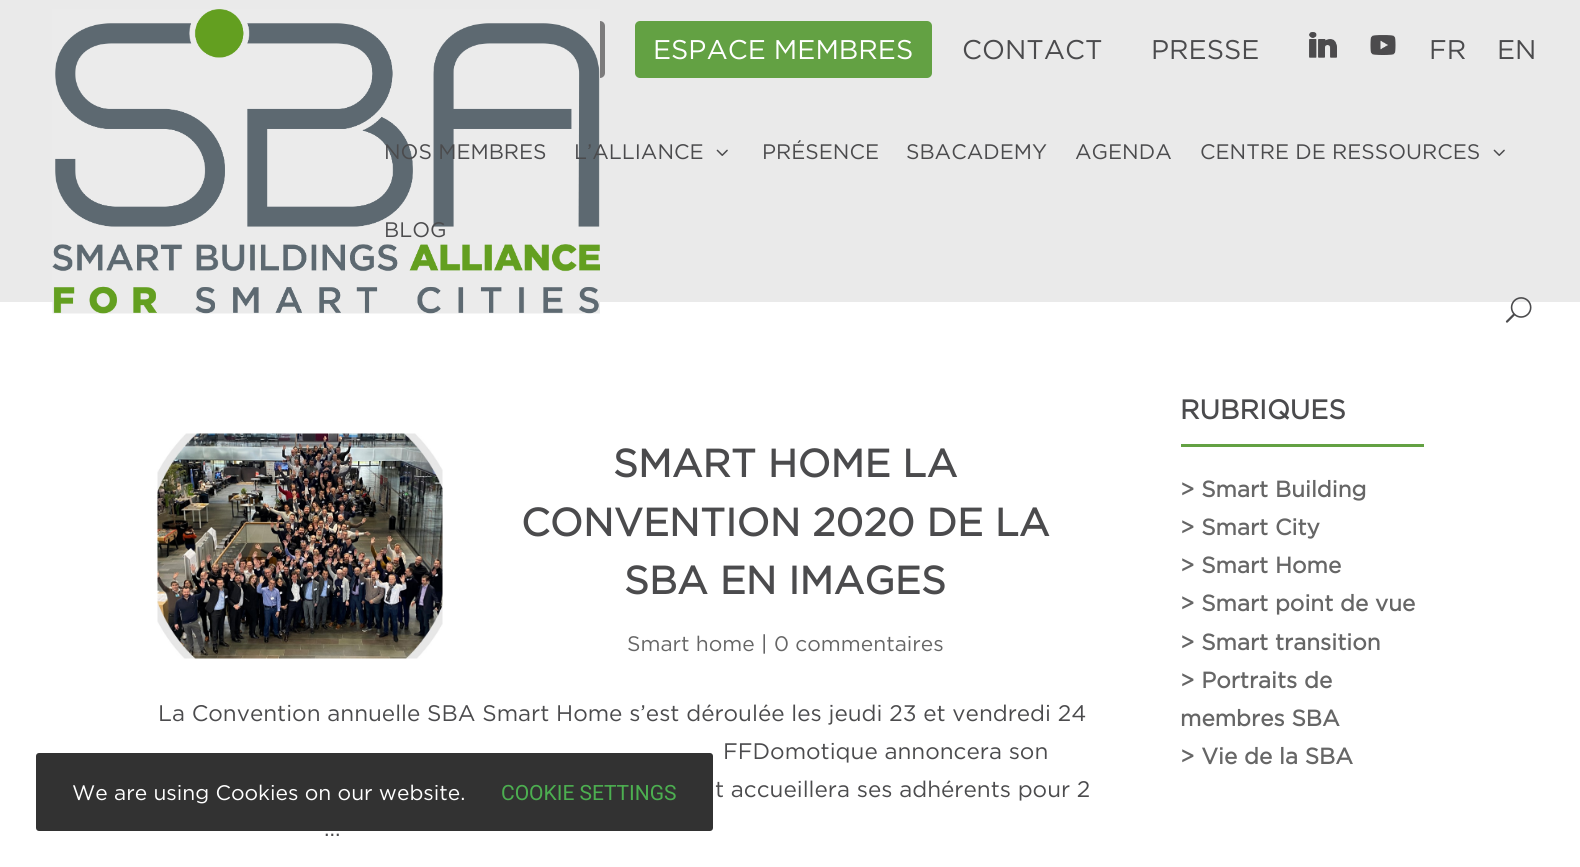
#include <cairo.h>
#include <math.h>
#include <stddef.h>

typedef struct { const char *family; double size; int italic, bold; unsigned color; } style_t;
static cairo_t *ctx;

static void ink(unsigned color) {
    cairo_set_source_rgb(ctx, (color >> 16) / 255.0, (color >> 8 & 255) / 255.0, (color & 255) / 255.0);
}

static void write(double x, double y, const char *s, const style_t *st) {
    cairo_select_font_face(ctx, st->family, st->italic ? CAIRO_FONT_SLANT_ITALIC : CAIRO_FONT_SLANT_NORMAL,
        st->bold ? CAIRO_FONT_WEIGHT_BOLD : CAIRO_FONT_WEIGHT_NORMAL);
    cairo_set_font_size(ctx, st->size);
    ink(st->color);
    cairo_move_to(ctx, x, y);
    cairo_show_text(ctx, s);
}

static void block(double x, double y, double w, double h, unsigned color) {
    ink(color);
    cairo_rectangle(ctx, x, y, w, h);
    cairo_fill(ctx);
}

static void round_path(double x, double y, double w, double h, double r) {
    cairo_new_sub_path(ctx);
    cairo_arc(ctx, x + w - r, y + h - r, r, 0, M_PI / 2);
    cairo_arc(ctx, x + r, y + h - r, r, M_PI / 2, M_PI);
    cairo_arc(ctx, x + r, y + r, r, M_PI, 1.5 * M_PI);
    cairo_arc(ctx, x + w - r, y + r, r, 1.5 * M_PI, 2 * M_PI);
    cairo_close_path(ctx);
}

static void paste(const char *path, double x, double y, double w, double h) {
    cairo_surface_t *image = cairo_image_surface_create_from_png(path);
    cairo_save(ctx);
    cairo_set_source_surface(ctx, image, x, y);
    cairo_rectangle(ctx, x, y, w, h);
    cairo_fill(ctx);
    cairo_restore(ctx);
    cairo_surface_destroy(image);
}

static const style_t s1 = {"Gotham", 27, 0, 0, 0xffffff};
static const style_t s2 = {"Gotham", 27, 0, 0, 0x4b4b4d};
static const style_t s3 = {"Gotham", 21, 0, 0, 0x4b4b4d};
static const style_t s4 = {"Gotham", 39, 0, 1, 0x4b4b4d};
static const style_t s5 = {"Gotham", 21, 0, 0, 0x666666};
static const style_t s6 = {"Gotham", 22.5, 0, 0, 0x4b4b4d};
static const style_t s7 = {"Gotham", 27, 0, 1, 0x4b4b4d};
static const style_t s8 = {"Gotham", 22.5, 0, 1, 0x666666};
static const style_t s9 = {"Gotham", 21, 0, 0, 0xffffff};
static const style_t s10 = {"Roboto", 21, 0, 0, 0x4caf50};

int main(void) {
    cairo_surface_t *surface = cairo_image_surface_create(CAIRO_FORMAT_RGB24, 1580, 867);
    ctx = cairo_create(surface);
    cairo_font_options_t *options = cairo_font_options_create();
    cairo_font_options_set_hint_metrics(options, CAIRO_HINT_METRICS_OFF);
    cairo_font_options_set_hint_style(options, CAIRO_HINT_STYLE_NONE);
    cairo_set_font_options(ctx, options);
    cairo_set_miter_limit(ctx, 4);
    ink(0xeaeaea);
    cairo_paint(ctx);
    ink(0x7c7b7c);
    round_path(171, 21, 434, 57, 5);
    cairo_fill(ctx);
    ink(0x63a143);
    round_path(635, 21, 297, 57, 5);
    cairo_fill(ctx);
    write(653, 59, "ESPACE MEMBRES", &s1);
    write(962, 59, "CONTACT", &s2);
    write(1151, 59, "PRESSE", &s2);
    paste("pic1.png", 1309, 32, 28, 26);
    paste("pic2.png", 1370, 35, 26, 20);
    write(1429, 59, "FR", &s2);
    write(1497, 59, "EN", &s2);
    block(0, 302, 1580, 565, 0xffffff);
    paste("pic3.png", 52, 9, 548, 305);
    write(384, 159, "NOS MEMBRES", &s3);
    write(574, 159, "L’ALLIANCE", &s3);
    paste("pic4.png", 716, 149, 12, 7);
    write(762, 159, "PRÉSENCE", &s3);
    write(906, 159, "SBACADEMY", &s3);
    write(1075, 159, "AGENDA", &s3);
    write(1200, 159, "CENTRE DE RESSOURCES", &s3);
    paste("pic4.png", 1493, 149, 12, 7);
    write(384, 237, "BLOG", &s3);
    paste("pic5.png", 1505, 297, 27, 26);
    paste("pic6.png", 157, 433, 286, 226);
    write(613, 477, "SMART HOME LA", &s4);
    write(521, 536, "CONVENTION 2020 DE LA", &s4);
    write(624, 594, "SBA EN IMAGES", &s4);
    write(627, 651, "Smart home", &s5);
    write(761, 651, "|", &s3);
    write(774, 651, "0 commentaires", &s5);
    write(158, 721, "La Convention annuelle SBA Smart Home s’est déroulée les jeudi 23 et vendredi 24", &s6);
    write(723, 759, "FFDomotique annoncera son", &s6);
    write(715, 797, "t accueillera ses adhérents pour 2", &s6);
    write(324, 836, "...", &s6);
    block(1181, 444, 243, 3, 0x63a143);
    write(1180, 419, "RUBRIQUES", &s7);
    write(1180, 497, "> Smart Building", &s8);
    write(1180, 535, "> Smart City", &s8);
    write(1180, 573, "> Smart Home", &s8);
    write(1180, 611, "> Smart point de vue", &s8);
    write(1180, 650, "> Smart transition", &s8);
    write(1180, 688, "> Portraits de", &s8);
    write(1180, 726, "membres SBA", &s8);
    write(1180, 764, "> Vie de la SBA", &s8);
    ink(0x323232);
    round_path(36, 753, 677, 78, 3);
    cairo_fill(ctx);
    write(72, 800, "We are using Cookies on our website.", &s9);
    write(501, 800, "COOKIE SETTINGS", &s10);
    cairo_surface_write_to_png(surface, "screenshot.png");
    cairo_font_options_destroy(options);
    cairo_destroy(ctx);
    cairo_surface_destroy(surface);
    return 0;
}
